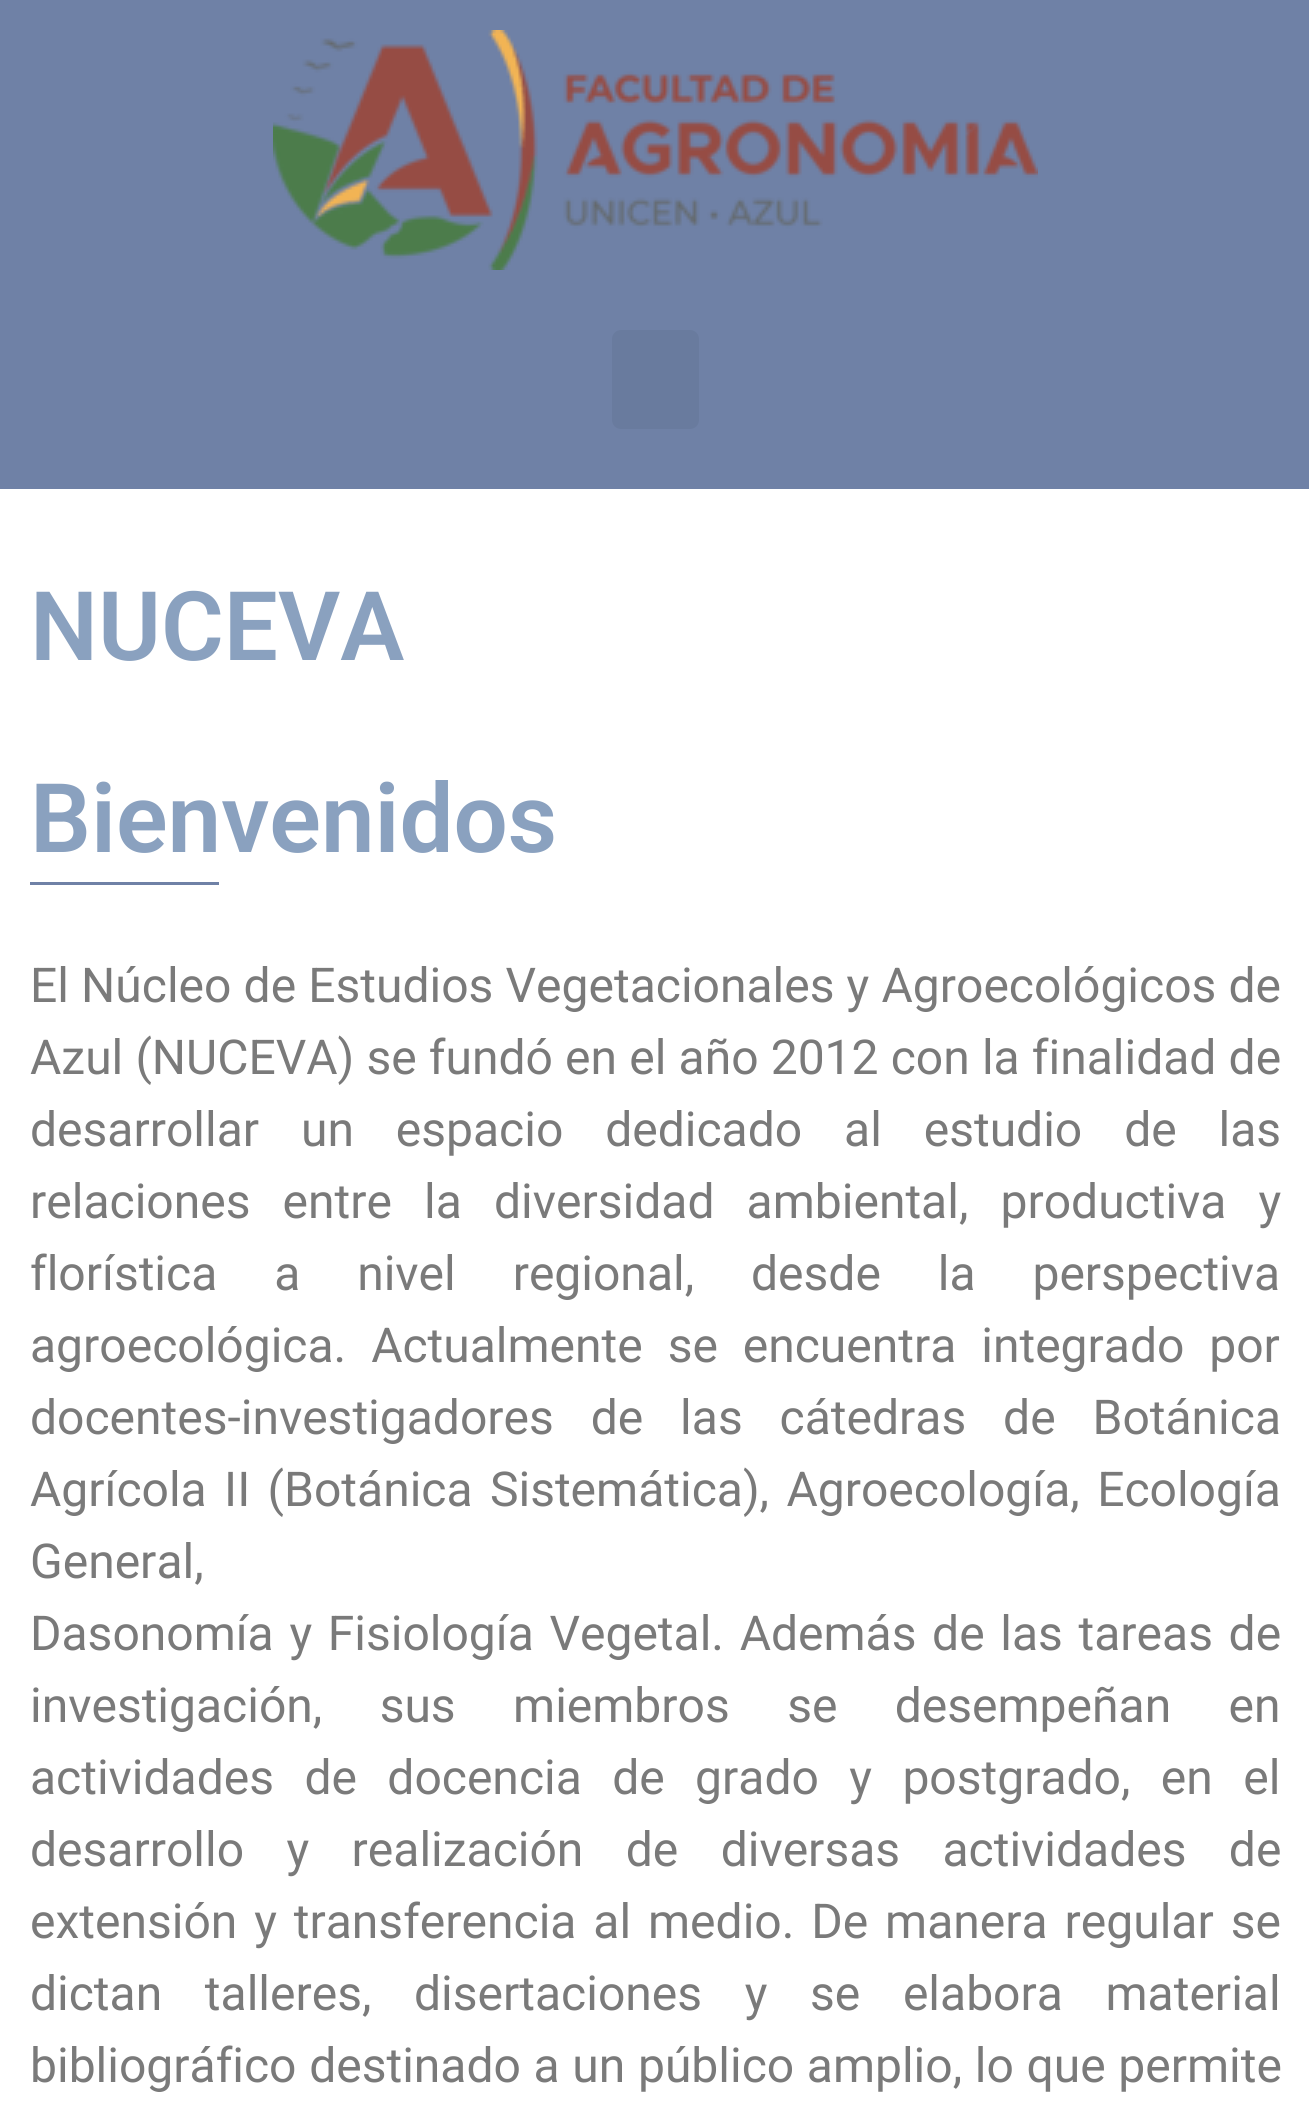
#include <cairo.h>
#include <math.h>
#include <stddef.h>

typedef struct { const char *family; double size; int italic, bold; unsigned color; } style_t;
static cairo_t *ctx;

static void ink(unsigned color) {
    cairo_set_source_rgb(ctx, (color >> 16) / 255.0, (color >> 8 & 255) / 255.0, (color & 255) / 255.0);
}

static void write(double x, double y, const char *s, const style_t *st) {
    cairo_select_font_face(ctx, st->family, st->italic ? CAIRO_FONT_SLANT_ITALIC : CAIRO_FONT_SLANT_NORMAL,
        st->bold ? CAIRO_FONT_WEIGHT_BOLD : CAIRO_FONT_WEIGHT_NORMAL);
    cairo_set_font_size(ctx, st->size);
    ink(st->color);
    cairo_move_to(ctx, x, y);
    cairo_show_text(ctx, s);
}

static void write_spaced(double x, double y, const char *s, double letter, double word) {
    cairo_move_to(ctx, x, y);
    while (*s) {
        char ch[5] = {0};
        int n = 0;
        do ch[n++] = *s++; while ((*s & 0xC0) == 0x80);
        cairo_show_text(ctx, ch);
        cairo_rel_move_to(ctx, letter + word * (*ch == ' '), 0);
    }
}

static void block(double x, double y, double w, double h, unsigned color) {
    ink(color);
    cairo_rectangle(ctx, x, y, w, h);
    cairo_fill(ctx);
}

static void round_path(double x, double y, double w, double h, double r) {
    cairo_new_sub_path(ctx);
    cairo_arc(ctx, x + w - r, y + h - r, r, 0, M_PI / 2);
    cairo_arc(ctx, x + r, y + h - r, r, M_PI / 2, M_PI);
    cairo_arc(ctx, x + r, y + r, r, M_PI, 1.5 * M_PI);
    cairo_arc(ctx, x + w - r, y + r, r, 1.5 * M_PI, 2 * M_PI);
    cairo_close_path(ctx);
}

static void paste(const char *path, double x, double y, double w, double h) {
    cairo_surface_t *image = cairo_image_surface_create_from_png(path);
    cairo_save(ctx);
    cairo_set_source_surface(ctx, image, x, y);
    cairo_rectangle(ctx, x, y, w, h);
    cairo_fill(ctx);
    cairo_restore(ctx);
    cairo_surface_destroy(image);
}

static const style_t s1 = {"Roboto SemiBold", 96, 0, 0, 0x8aa1bf};
static const style_t s2 = {"Roboto", 48, 0, 0, 0x7a7a7a};

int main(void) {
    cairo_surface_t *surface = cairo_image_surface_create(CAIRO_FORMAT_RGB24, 1309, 2123);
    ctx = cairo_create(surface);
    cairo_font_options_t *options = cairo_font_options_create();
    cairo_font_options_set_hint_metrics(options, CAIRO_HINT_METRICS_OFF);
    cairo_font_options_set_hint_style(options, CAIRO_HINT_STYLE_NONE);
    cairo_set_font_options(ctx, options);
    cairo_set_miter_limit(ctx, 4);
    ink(0xffffff);
    cairo_paint(ctx);
    block(0, 0, 1309, 489, 0x6f81a6);
    paste("pic1.png", 273, 30, 765, 240);
    ink(0x697b9e);
    round_path(612, 330, 87, 99, 9);
    cairo_fill(ctx);
    write(30, 660, "NUCEVA", &s1);
    write(30, 852, "Bienvenidos", &s1);
    block(30, 882, 189, 3, 0x6f81a6);
    cairo_select_font_face(ctx, "Roboto", CAIRO_FONT_SLANT_NORMAL, CAIRO_FONT_WEIGHT_NORMAL);
    cairo_set_font_size(ctx, 48);
    ink(0x7a7a7a);
    write_spaced(30, 1002, "El Núcleo de Estudios Vegetacionales y Agroecológicos de", 0, 0.25);
    write_spaced(30, 1074, "Azul (NUCEVA) se fundó en el año 2012 con la finalidad de", 0, 0.25);
    write_spaced(30, 1146, "desarrollar un espacio dedicado al estudio de las", 0, 30);
    write_spaced(30, 1218, "relaciones entre la diversidad ambiental, productiva y", 0, 20.25);
    write_spaced(30, 1290, "florística a nivel regional, desde la perspectiva", 0, 45);
    write_spaced(30, 1362, "agroecológica. Actualmente se encuentra integrado por", 0, 13);
    write_spaced(30, 1434, "docentes-investigadores de las cátedras de Botánica", 0, 25);
    write_spaced(30, 1506, "Agrícola II (Botánica Sistemática), Agroecología, Ecología", 0, 5.5);
    write(30, 1578, "General,", &s2);
    write_spaced(30, 1650, "Dasonomía y Fisiología Vegetal. Además de las tareas de", 0, 3.75);
    write_spaced(30, 1722, "investigación, sus miembros se desempeñan en", 0, 45.5);
    write_spaced(30, 1794, "actividades de docencia de grado y postgrado, en el", 0, 18.5);
    write_spaced(30, 1866, "desarrollo y realización de diversas actividades de", 0, 30.5);
    write_spaced(30, 1938, "extensión y transferencia al medio. De manera regular se", 0, 5);
    write_spaced(30, 2010, "dictan talleres, disertaciones y se elabora material", 0, 30.75);
    write_spaced(30, 2082, "bibliográfico destinado a un público amplio, lo que permite", 0, 0.75);
    cairo_surface_write_to_png(surface, "screenshot.png");
    cairo_font_options_destroy(options);
    cairo_destroy(ctx);
    cairo_surface_destroy(surface);
    return 0;
}
